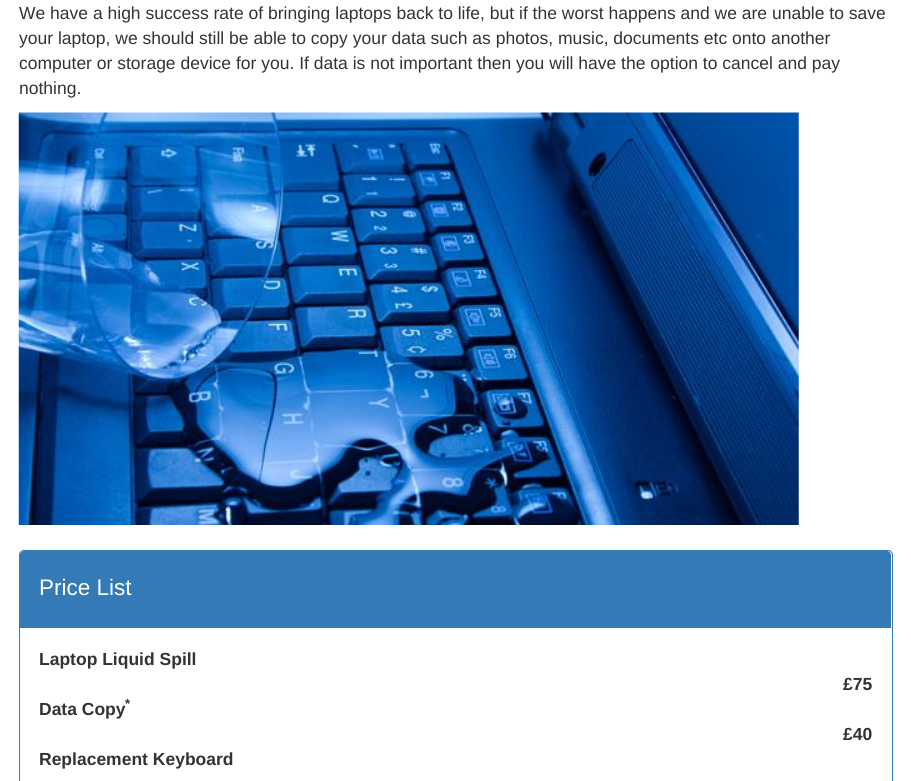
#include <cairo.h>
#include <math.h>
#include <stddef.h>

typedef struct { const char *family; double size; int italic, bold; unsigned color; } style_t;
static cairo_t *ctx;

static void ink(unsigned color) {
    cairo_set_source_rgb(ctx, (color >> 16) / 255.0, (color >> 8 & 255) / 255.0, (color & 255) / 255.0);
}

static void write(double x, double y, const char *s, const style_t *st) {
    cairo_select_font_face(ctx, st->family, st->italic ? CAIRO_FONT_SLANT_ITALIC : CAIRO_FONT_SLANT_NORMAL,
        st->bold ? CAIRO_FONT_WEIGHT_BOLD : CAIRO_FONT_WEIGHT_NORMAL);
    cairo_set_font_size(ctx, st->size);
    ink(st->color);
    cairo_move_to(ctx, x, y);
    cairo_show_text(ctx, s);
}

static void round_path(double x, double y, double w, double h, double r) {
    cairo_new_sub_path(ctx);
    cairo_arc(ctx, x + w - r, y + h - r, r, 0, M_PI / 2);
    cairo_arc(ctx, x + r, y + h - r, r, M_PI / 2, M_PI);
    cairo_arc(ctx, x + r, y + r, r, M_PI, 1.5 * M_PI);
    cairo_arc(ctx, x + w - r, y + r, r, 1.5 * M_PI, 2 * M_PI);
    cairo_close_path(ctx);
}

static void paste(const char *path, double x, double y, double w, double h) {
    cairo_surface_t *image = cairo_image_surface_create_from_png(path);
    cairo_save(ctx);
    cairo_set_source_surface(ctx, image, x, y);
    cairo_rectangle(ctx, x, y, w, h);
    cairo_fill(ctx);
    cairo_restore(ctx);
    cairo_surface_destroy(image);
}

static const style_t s1 = {"Liberation Sans", 17.5, 0, 0, 0x333333};
static const style_t s2 = {"Liberation Sans", 22.5, 0, 0, 0xffffff};
static const style_t s3 = {"Liberation Sans", 17.5, 0, 1, 0x333333};
static const style_t s4 = {"Liberation Sans", 13, 0, 1, 0x333333};

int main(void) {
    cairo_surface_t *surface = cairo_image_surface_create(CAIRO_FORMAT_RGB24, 911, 781);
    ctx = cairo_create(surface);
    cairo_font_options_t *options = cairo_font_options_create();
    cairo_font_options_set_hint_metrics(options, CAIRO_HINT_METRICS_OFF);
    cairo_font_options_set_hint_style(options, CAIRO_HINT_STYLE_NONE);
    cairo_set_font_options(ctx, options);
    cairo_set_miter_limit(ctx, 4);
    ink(0xffffff);
    cairo_paint(ctx);
    write(19, 19, "We have a high success rate of bringing laptops back to life, but if the worst happens and we are unable to save", &s1);
    write(19, 44, "your laptop, we should still be able to copy your data such as photos, music, documents etc onto another", &s1);
    write(19, 69, "computer or storage device for you. If data is not important then you will have the option to cancel and pay", &s1);
    write(19, 94, "nothing.", &s1);
    paste("pic1.png", 18, 112, 781, 413);
    round_path(19.5, 550.5, 873, 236, 4.5);
    ink(0x337ab7);
    cairo_set_line_width(ctx, 1);
    cairo_stroke(ctx);
    cairo_new_path(ctx);
    cairo_move_to(ctx, 24, 551);
    cairo_line_to(ctx, 887, 551);
    cairo_curve_to(ctx, 889, 551, 891, 553, 891, 555);
    cairo_line_to(ctx, 891, 628);
    cairo_line_to(ctx, 20, 628);
    cairo_line_to(ctx, 20, 555);
    cairo_curve_to(ctx, 20, 553, 22, 551, 24, 551);
    cairo_close_path(ctx);
    cairo_fill(ctx);
    write(39, 595, "Price List", &s2);
    write(39, 665, "Laptop Liquid Spill", &s3);
    write(843, 690, "£75", &s3);
    write(125, 708, "*", &s4);
    write(39, 715, "Data Copy", &s3);
    write(843, 740, "£40", &s3);
    write(39, 765, "Replacement Keyboard", &s3);
    cairo_surface_write_to_png(surface, "screenshot.png");
    cairo_font_options_destroy(options);
    cairo_destroy(ctx);
    cairo_surface_destroy(surface);
    return 0;
}
